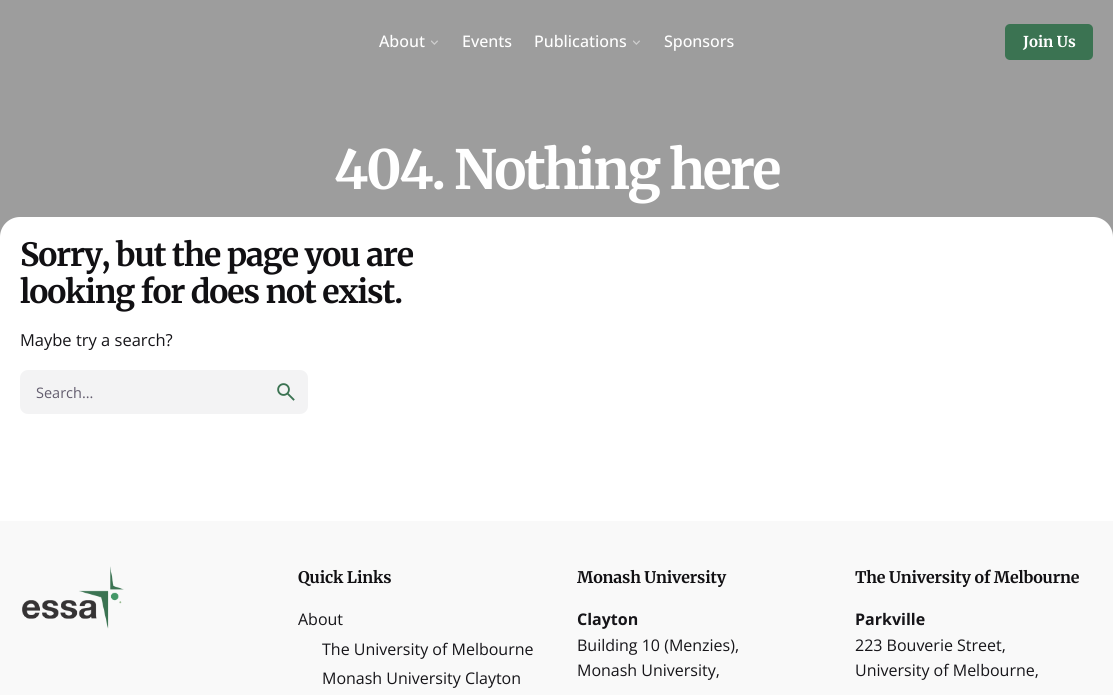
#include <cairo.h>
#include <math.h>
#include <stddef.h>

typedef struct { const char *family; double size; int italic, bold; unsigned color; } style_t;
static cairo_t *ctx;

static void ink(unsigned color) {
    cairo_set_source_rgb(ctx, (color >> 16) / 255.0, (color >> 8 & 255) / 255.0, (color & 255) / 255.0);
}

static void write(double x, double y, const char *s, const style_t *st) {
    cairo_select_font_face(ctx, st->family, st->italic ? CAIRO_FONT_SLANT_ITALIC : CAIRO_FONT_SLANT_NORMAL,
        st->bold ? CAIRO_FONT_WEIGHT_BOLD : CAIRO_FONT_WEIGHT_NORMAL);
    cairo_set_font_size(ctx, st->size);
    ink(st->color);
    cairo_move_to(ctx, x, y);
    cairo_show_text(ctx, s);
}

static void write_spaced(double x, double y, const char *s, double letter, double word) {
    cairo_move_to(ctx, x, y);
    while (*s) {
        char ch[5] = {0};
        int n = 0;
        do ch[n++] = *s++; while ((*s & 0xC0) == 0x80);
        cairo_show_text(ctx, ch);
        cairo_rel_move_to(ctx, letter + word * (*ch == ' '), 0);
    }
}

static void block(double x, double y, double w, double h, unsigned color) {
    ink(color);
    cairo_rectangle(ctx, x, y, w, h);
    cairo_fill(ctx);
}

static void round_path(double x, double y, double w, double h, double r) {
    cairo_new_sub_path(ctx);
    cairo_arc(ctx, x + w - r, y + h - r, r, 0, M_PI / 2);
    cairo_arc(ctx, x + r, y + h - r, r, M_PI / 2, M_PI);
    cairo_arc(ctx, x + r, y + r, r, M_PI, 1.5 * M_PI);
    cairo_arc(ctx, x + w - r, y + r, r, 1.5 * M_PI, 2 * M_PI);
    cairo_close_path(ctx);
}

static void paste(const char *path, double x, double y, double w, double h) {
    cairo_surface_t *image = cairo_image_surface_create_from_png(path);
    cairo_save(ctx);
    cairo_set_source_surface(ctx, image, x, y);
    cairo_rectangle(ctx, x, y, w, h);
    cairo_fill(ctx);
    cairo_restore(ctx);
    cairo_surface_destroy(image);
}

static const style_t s1 = {"Open Sans Medium", 16, 0, 0, 0xffffff};
static const style_t s2 = {"Merriweather", 15, 0, 1, 0xffffff};
static const style_t s3 = {"Open Sans", 16.5, 0, 0, 0x161519};
static const style_t s4 = {"Open Sans", 14.5, 0, 0, 0x635d6e};
static const style_t s5 = {"Open Sans", 16, 0, 0, 0x161519};
static const style_t s6 = {"Open Sans", 16, 0, 1, 0x161519};

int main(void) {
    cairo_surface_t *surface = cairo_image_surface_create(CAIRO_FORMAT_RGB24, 1113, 695);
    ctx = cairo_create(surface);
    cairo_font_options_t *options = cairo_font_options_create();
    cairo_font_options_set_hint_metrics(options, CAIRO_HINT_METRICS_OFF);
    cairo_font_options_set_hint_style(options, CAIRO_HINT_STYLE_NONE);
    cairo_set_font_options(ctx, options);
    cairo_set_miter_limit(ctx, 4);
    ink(0xffffff);
    cairo_paint(ctx);
    block(0, 0, 1113, 237, 0x9d9d9d);
    write(379, 47, "About", &s1);
    paste("pic1.png", 431, 40, 7, 5);
    write(462, 47, "Events", &s1);
    write(534, 47, "Publications", &s1);
    paste("pic2.png", 633, 40, 7, 5);
    write(664, 47, "Sponsors", &s1);
    ink(0x3b7352);
    round_path(1005, 24, 88, 36, 5);
    cairo_fill(ctx);
    write(1023, 47, "Join Us", &s2);
    cairo_set_font_size(ctx, 54);
    write_spaced(334, 189, "404. Nothing here", -2.4, 0);
    cairo_new_path(ctx);
    cairo_move_to(ctx, 20, 217);
    cairo_line_to(ctx, 1093, 217);
    cairo_curve_to(ctx, 1104, 217, 1113, 226, 1113, 237);
    cairo_line_to(ctx, 0, 237);
    cairo_curve_to(ctx, 0, 226, 9, 217, 20, 217);
    cairo_close_path(ctx);
    cairo_fill(ctx);
    cairo_set_font_size(ctx, 32);
    ink(0x111013);
    write_spaced(20, 266, "Sorry, but the page you are", -1.1, 0);
    write_spaced(20, 303, "looking for does not exist.", -1.1, 0);
    write(20, 346, "Maybe try a search?", &s3);
    ink(0xf3f3f4);
    round_path(20, 370, 288, 44, 8);
    cairo_fill(ctx);
    write(36, 398, "Search...", &s4);
    paste("pic3.png", 277, 383, 18, 18);
    block(0, 521, 1113, 174, 0xf9f9f9);
    paste("pic4.png", 22, 566, 102, 63);
    cairo_select_font_face(ctx, "Merriweather", CAIRO_FONT_SLANT_NORMAL, CAIRO_FONT_WEIGHT_BOLD);
    cairo_set_font_size(ctx, 16);
    ink(0x111013);
    write_spaced(298, 583, "Quick Links", -0.15, 0);
    write(298, 625, "About", &s5);
    write(322, 655, "The University of Melbourne", &s5);
    write(322, 684, "Monash University Clayton", &s5);
    cairo_select_font_face(ctx, "Merriweather", CAIRO_FONT_SLANT_NORMAL, CAIRO_FONT_WEIGHT_BOLD);
    ink(0x111013);
    write_spaced(577, 583, "Monash University", -0.15, 0);
    write(577, 625, "Clayton", &s6);
    write(577, 651, "Building 10 (Menzies),", &s5);
    write(577, 676, "Monash University,", &s5);
    cairo_select_font_face(ctx, "Merriweather", CAIRO_FONT_SLANT_NORMAL, CAIRO_FONT_WEIGHT_BOLD);
    ink(0x111013);
    write_spaced(855, 583, "The University of Melbourne", -0.15, 0);
    write(855, 625, "Parkville", &s6);
    write(855, 651, "223 Bouverie Street,", &s5);
    write(855, 676, "University of Melbourne,", &s5);
    cairo_surface_write_to_png(surface, "screenshot.png");
    cairo_font_options_destroy(options);
    cairo_destroy(ctx);
    cairo_surface_destroy(surface);
    return 0;
}
